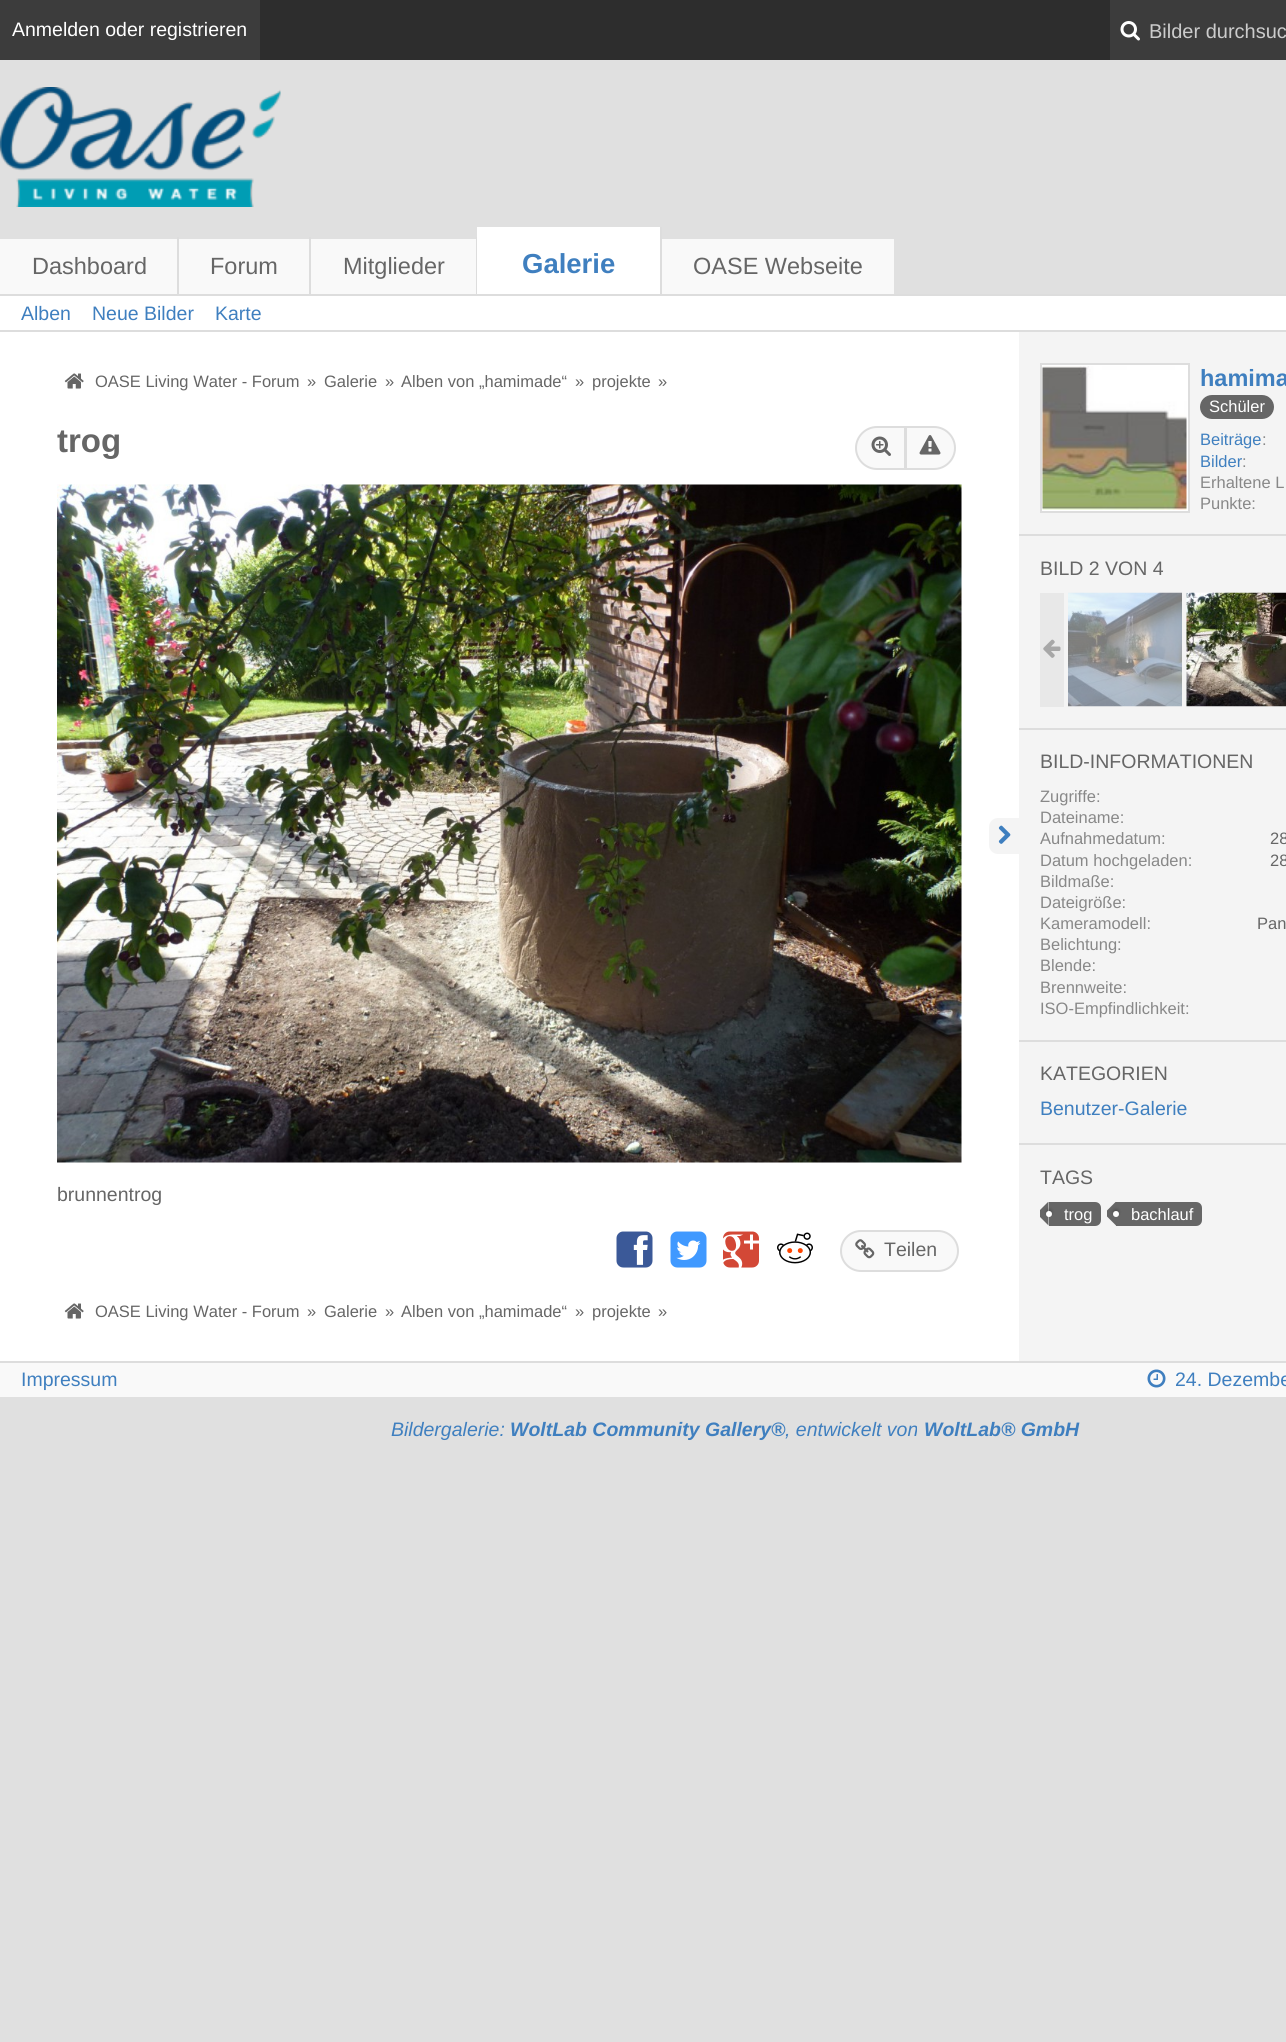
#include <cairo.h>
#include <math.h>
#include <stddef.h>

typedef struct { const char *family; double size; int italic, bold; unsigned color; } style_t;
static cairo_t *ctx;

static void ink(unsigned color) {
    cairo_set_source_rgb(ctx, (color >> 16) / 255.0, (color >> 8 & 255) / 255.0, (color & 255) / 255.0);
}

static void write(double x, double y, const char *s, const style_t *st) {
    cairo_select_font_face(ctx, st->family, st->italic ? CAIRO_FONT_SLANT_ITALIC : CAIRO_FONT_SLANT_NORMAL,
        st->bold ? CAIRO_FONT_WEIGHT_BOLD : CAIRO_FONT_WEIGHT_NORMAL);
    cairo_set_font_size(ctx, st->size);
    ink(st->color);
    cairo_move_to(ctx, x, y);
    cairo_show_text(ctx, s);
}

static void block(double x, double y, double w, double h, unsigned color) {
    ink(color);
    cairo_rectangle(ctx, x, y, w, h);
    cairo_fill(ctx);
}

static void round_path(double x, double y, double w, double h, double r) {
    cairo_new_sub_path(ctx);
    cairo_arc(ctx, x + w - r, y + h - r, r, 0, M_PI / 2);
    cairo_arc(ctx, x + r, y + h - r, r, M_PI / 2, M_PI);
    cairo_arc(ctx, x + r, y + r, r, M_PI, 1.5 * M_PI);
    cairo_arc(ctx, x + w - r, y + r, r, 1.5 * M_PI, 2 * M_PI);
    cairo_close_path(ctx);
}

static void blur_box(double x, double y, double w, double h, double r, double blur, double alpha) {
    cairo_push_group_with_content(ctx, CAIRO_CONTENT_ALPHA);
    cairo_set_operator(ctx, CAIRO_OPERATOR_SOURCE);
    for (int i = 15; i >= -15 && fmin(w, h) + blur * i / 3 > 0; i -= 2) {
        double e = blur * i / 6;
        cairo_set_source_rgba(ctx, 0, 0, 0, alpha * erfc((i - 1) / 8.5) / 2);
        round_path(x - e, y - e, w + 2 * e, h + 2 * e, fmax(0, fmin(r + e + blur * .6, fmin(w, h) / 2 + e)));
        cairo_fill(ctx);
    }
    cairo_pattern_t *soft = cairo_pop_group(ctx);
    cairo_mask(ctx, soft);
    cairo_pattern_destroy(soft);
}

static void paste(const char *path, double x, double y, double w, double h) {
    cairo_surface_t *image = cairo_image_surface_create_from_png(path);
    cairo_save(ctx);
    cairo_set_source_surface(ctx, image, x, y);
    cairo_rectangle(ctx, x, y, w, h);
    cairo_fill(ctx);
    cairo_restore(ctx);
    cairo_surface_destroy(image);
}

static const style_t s1 = {"Liberation Sans", 19.5, 0, 0, 0xffffff};
static const style_t s2 = {"Liberation Sans", 20, 0, 0, 0xcccccc};
static const style_t s3 = {"Liberation Sans", 23.5, 0, 0, 0x666666};
static const style_t s4 = {"Liberation Sans", 27.5, 0, 1, 0x3f7fbf};
static const style_t s5 = {"Liberation Sans", 19.5, 0, 0, 0x3f7fbf};
static const style_t s6 = {"Liberation Sans", 16.5, 0, 0, 0x666666};
static const style_t s7 = {"Liberation Sans", 33, 0, 1, 0x666666};
static const style_t s8 = {"Liberation Sans", 19.5, 0, 0, 0x666666};
static const style_t s9 = {"Liberation Sans", 23.5, 0, 1, 0x3f7fbf};
static const style_t s10 = {"Liberation Sans", 16.5, 0, 0, 0xffffff};
static const style_t s11 = {"Liberation Sans", 16.5, 0, 0, 0x3f7fbf};
static const style_t s12 = {"Liberation Sans", 16.5, 0, 0, 0x888888};
static const style_t s13 = {"Liberation Sans", 19.5, 1, 0, 0x3f7fbf};
static const style_t s14 = {"Liberation Sans", 19.5, 1, 1, 0x3f7fbf};

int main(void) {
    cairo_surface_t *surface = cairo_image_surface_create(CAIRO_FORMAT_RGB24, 1286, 2042);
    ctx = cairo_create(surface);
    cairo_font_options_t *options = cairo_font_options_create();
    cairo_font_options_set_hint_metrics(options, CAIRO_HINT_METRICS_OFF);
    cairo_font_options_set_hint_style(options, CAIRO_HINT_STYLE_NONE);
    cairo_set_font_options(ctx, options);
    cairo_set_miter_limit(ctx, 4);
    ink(0xe0e0e0);
    cairo_paint(ctx);
    block(260, 0, 850, 60, 0x2d2d2d);
    block(0, 0, 260, 60, 0x3c3c3c);
    write(12, 36, "Anmelden oder registrieren", &s1);
    block(1110, 0, 176, 60, 0x3c3c3c);
    paste("pic1.png", 1120, 21, 20, 20);
    write(1149, 38, "Bilder durchsuc", &s2);
    paste("pic2.png", 0, 87, 281, 120);
    block(0, 239, 894, 55, 0xf9f9f9);
    block(177, 237, 2, 57, 0xdddddd);
    write(32, 274, "Dashboard", &s3);
    block(309, 237, 2, 57, 0xdddddd);
    write(210, 274, "Forum", &s3);
    block(476, 237, 1, 57, 0xdddddd);
    write(343, 274, "Mitglieder", &s3);
    block(477, 227, 183, 67, 0xffffff);
    block(660, 227, 2, 67, 0xdddddd);
    write(522, 273, "Galerie", &s4);
    write(693, 274, "OASE Webseite", &s3);
    block(0, 296, 1286, 34, 0xffffff);
    block(0, 294, 1286, 2, 0xdddddd);
    block(0, 330, 1286, 2, 0xdddddd);
    write(21, 320, "Alben", &s5);
    write(92, 320, "Neue Bilder", &s5);
    write(215, 320, "Karte", &s5);
    block(1019, 332, 267, 1029, 0xf4f4f4);
    block(0, 332, 1019, 1029, 0xffffff);
    paste("pic3.png", 64, 373, 20, 16);
    write(95, 387, "OASE Living Water - Forum", &s6);
    write(307, 387, "»", &s6);
    write(324, 387, "Galerie", &s6);
    write(385, 387, "»", &s6);
    write(401, 387, "Alben von „hamimade“", &s6);
    write(575, 387, "»", &s6);
    write(592, 387, "projekte", &s6);
    write(658, 387, "»", &s6);
    write(57, 452, "trog", &s7);
    ink(0xf9f9f9);
    cairo_new_path(ctx);
    cairo_move_to(ctx, 877, 427);
    cairo_line_to(ctx, 905, 427);
    cairo_line_to(ctx, 905, 469);
    cairo_line_to(ctx, 877, 469);
    cairo_curve_to(ctx, 865.5, 469, 856, 459.5, 856, 448);
    cairo_curve_to(ctx, 856, 436.5, 865.5, 427, 877, 427);
    cairo_close_path(ctx);
    cairo_fill_preserve(ctx);
    ink(0xdddddd);
    cairo_stroke(ctx);
    paste("pic4.png", 871, 436, 20, 20);
    ink(0xf9f9f9);
    cairo_new_path(ctx);
    cairo_move_to(ctx, 906, 427);
    cairo_line_to(ctx, 934, 427);
    cairo_curve_to(ctx, 945.5, 427, 955, 436.5, 955, 448);
    cairo_curve_to(ctx, 955, 459.5, 945.5, 469, 934, 469);
    cairo_line_to(ctx, 906, 469);
    cairo_close_path(ctx);
    cairo_fill_preserve(ctx);
    ink(0xdddddd);
    cairo_stroke(ctx);
    paste("pic5.png", 919, 435, 22, 20);
    paste("pic6.png", 57, 484, 905, 679);
    write(57, 1201, "brunnentrog", &s8);
    paste("pic7.png", 616, 1231, 37, 37);
    paste("pic8.png", 670, 1231, 37, 37);
    paste("pic9.png", 723, 1231, 36, 37);
    paste("pic10.png", 777, 1232, 36, 32);
    ink(0xf9f9f9);
    round_path(841, 1231, 117, 40, 20);
    cairo_fill_preserve(ctx);
    ink(0xdddddd);
    cairo_stroke(ctx);
    paste("pic11.png", 855, 1239, 20, 20);
    write(884, 1256, "Teilen", &s8);
    paste("pic3.png", 64, 1303, 20, 16);
    write(95, 1317, "OASE Living Water - Forum", &s6);
    write(307, 1317, "»", &s6);
    write(324, 1317, "Galerie", &s6);
    write(385, 1317, "»", &s6);
    write(401, 1317, "Alben von „hamimade“", &s6);
    write(575, 1317, "»", &s6);
    write(592, 1317, "projekte", &s6);
    write(658, 1317, "»", &s6);
    ink(0xf4f4f4);
    cairo_new_path(ctx);
    cairo_move_to(ctx, 998, 818);
    cairo_line_to(ctx, 1025, 818);
    cairo_line_to(ctx, 1025, 854);
    cairo_line_to(ctx, 998, 854);
    cairo_curve_to(ctx, 993, 854, 989, 850, 989, 845);
    cairo_line_to(ctx, 989, 827);
    cairo_curve_to(ctx, 989, 822, 993, 818, 998, 818);
    cairo_close_path(ctx);
    cairo_fill(ctx);
    paste("pic12.png", 998, 825, 13, 19);
    block(1019, 534, 267, 2, 0xdddddd);
    ink(0xffffff);
    cairo_rectangle(ctx, 1041, 364, 148, 148);
    cairo_fill_preserve(ctx);
    ink(0xdddddd);
    cairo_stroke(ctx);
    paste("pic13.png", 1042, 366, 145, 144);
    write(1200, 386, "hamima", &s9);
    ink(0x666666);
    round_path(1200, 395, 74, 24, 12);
    cairo_fill(ctx);
    write(1209, 412, "Schüler", &s10);
    write(1200, 445, "Beiträge", &s11);
    write(1262, 445, ":", &s12);
    write(1200, 467, "Bilder", &s11);
    write(1242, 467, ":", &s12);
    write(1200, 488, "Erhaltene L", &s12);
    write(1200, 509, "Punkte:", &s12);
    block(1019, 728, 267, 2, 0xdddddd);
    write(1040, 575, "BILD 2 VON 4", &s8);
    block(1040, 593, 24, 114, 0xe8e8e8);
    paste("pic14.png", 1043, 639, 18, 19);
    paste("pic15.png", 1068, 592, 114, 115);
    paste("pic16.png", 1186, 592, 100, 115);
    block(1019, 1040, 267, 2, 0xdddddd);
    write(1040, 768, "BILD-INFORMATIONEN", &s8);
    write(1040, 802, "Zugriffe:", &s12);
    write(1040, 823, "Dateiname:", &s12);
    write(1040, 844, "Aufnahmedatum:", &s12);
    write(1270, 844, "28", &s6);
    write(1040, 866, "Datum hochgeladen:", &s12);
    write(1270, 866, "28", &s6);
    write(1040, 887, "Bildmaße:", &s12);
    write(1040, 908, "Dateigröße:", &s12);
    write(1040, 929, "Kameramodell:", &s12);
    write(1257, 929, "Pan", &s6);
    write(1040, 950, "Belichtung:", &s12);
    write(1040, 971, "Blende:", &s12);
    write(1040, 993, "Brennweite:", &s12);
    write(1040, 1014, "ISO-Empfindlichkeit:", &s12);
    block(1019, 1143, 267, 2, 0xdddddd);
    write(1040, 1080, "KATEGORIEN", &s8);
    write(1040, 1115, "Benutzer-Galerie", &s5);
    write(1040, 1184, "TAGS", &s8);
    cairo_new_path(ctx);
    cairo_move_to(ctx, 1049, 1202);
    cairo_line_to(ctx, 1095, 1202);
    cairo_curve_to(ctx, 1098.5, 1202, 1101, 1204.5, 1101, 1208);
    cairo_line_to(ctx, 1101, 1220);
    cairo_curve_to(ctx, 1101, 1223.5, 1098.5, 1226, 1095, 1226);
    cairo_line_to(ctx, 1049, 1226);
    cairo_close_path(ctx);
    cairo_fill(ctx);
    cairo_save(ctx);
    cairo_rectangle(ctx, 1040, 1202, 9, 24);
    cairo_clip(ctx);
    cairo_new_path(ctx);
    cairo_move_to(ctx, 1048.5, 1201.5);
    cairo_line_to(ctx, 1048.5, 1225.5);
    cairo_line_to(ctx, 1036.5, 1213.5);
    cairo_close_path(ctx);
    cairo_fill(ctx);
    cairo_restore(ctx);
    ink(0x000000);
    blur_box(1046, 1209, 6, 6, 3, 1.5, 0.2);
    ink(0xffffff);
    cairo_arc(ctx, 1049, 1214, 3, 0, 2 * M_PI);
    cairo_fill(ctx);
    write(1064, 1220, "trog", &s10);
    ink(0x666666);
    cairo_new_path(ctx);
    cairo_move_to(ctx, 1116, 1202);
    cairo_line_to(ctx, 1196, 1202);
    cairo_curve_to(ctx, 1199.5, 1202, 1202, 1204.5, 1202, 1208);
    cairo_line_to(ctx, 1202, 1220);
    cairo_curve_to(ctx, 1202, 1223.5, 1199.5, 1226, 1196, 1226);
    cairo_line_to(ctx, 1116, 1226);
    cairo_close_path(ctx);
    cairo_fill(ctx);
    cairo_save(ctx);
    cairo_rectangle(ctx, 1107, 1202, 9, 24);
    cairo_clip(ctx);
    cairo_new_path(ctx);
    cairo_move_to(ctx, 1116, 1201.5);
    cairo_line_to(ctx, 1116, 1225.5);
    cairo_line_to(ctx, 1104, 1213.5);
    cairo_close_path(ctx);
    cairo_fill(ctx);
    cairo_restore(ctx);
    ink(0x000000);
    blur_box(1113, 1209, 6, 6, 3, 1.5, 0.2);
    ink(0xffffff);
    cairo_arc(ctx, 1116, 1214, 3, 0, 2 * M_PI);
    cairo_fill(ctx);
    write(1131, 1220, "bachlauf", &s10);
    block(0, 1363, 1286, 34, 0xf9f9f9);
    block(0, 1361, 1286, 2, 0xdddddd);
    write(21, 1386, "Impressum", &s5);
    paste("pic17.png", 1147, 1369, 19, 19);
    write(1175, 1386, "24. Dezembe", &s5);
    write(391, 1436, "Bildergalerie:", &s13);
    write(510, 1436, "WoltLab Community Gallery®", &s14);
    write(785, 1436, ", entwickelt von", &s13);
    write(924, 1436, "WoltLab® GmbH", &s14);
    cairo_surface_write_to_png(surface, "screenshot.png");
    cairo_font_options_destroy(options);
    cairo_destroy(ctx);
    cairo_surface_destroy(surface);
    return 0;
}
